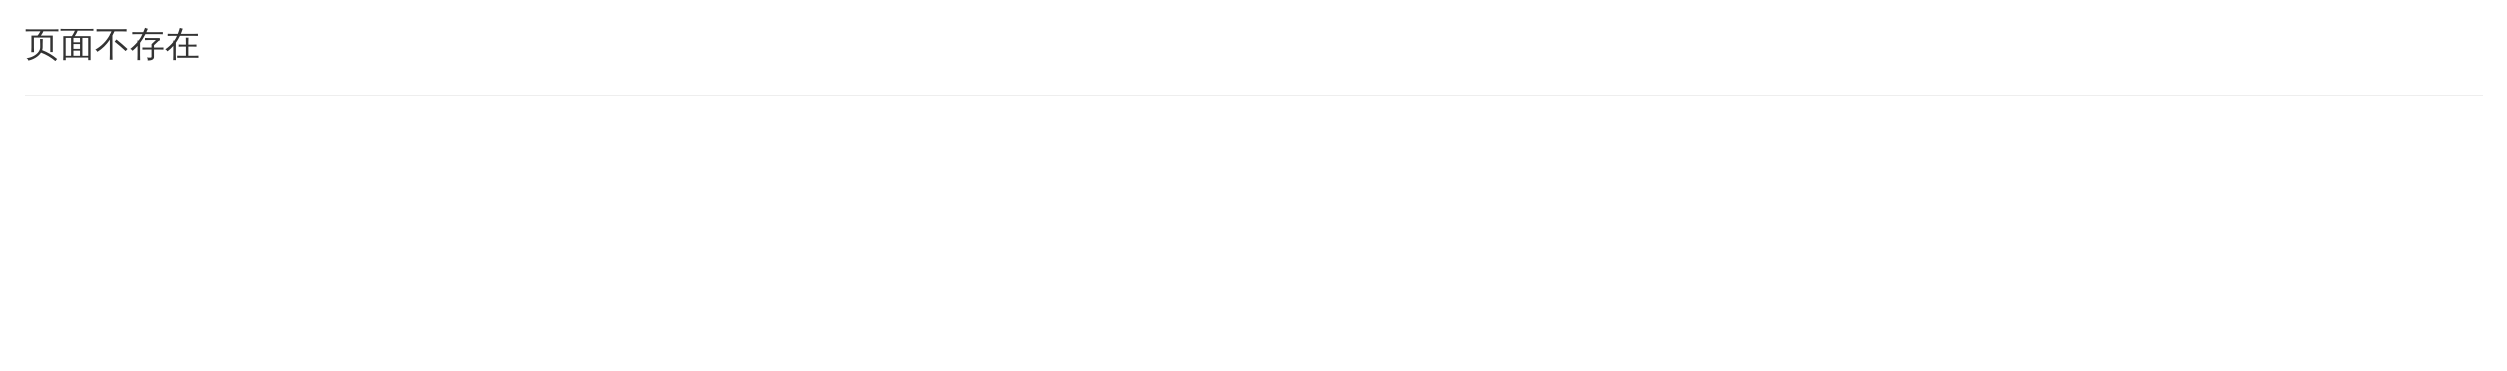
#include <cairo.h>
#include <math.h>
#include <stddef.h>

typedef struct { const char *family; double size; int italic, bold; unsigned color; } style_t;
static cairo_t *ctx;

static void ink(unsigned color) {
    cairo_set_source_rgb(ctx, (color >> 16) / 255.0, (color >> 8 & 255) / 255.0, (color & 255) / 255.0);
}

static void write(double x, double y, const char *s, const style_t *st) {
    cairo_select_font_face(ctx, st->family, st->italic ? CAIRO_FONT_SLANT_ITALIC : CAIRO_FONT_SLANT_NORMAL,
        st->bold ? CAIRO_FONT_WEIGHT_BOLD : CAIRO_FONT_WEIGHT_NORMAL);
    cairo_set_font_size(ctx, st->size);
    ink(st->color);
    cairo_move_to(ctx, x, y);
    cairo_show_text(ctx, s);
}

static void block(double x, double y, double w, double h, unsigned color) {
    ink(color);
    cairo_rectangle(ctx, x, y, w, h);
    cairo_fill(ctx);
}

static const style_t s1 = {"WenQuanYi Zen Hei Medium", 35, 0, 0, 0x333333};

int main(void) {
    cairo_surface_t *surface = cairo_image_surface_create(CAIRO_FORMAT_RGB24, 2507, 371);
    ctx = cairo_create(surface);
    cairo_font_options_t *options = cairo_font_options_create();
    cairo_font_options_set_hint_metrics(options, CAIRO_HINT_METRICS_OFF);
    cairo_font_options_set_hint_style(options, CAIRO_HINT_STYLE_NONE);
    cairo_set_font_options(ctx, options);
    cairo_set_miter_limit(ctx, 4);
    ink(0xffffff);
    cairo_paint(ctx);
    write(25, 56, "页面不存在", &s1);
    block(25, 95, 2458, 1, 0xeeeeee);
    cairo_surface_write_to_png(surface, "screenshot.png");
    cairo_font_options_destroy(options);
    cairo_destroy(ctx);
    cairo_surface_destroy(surface);
    return 0;
}
